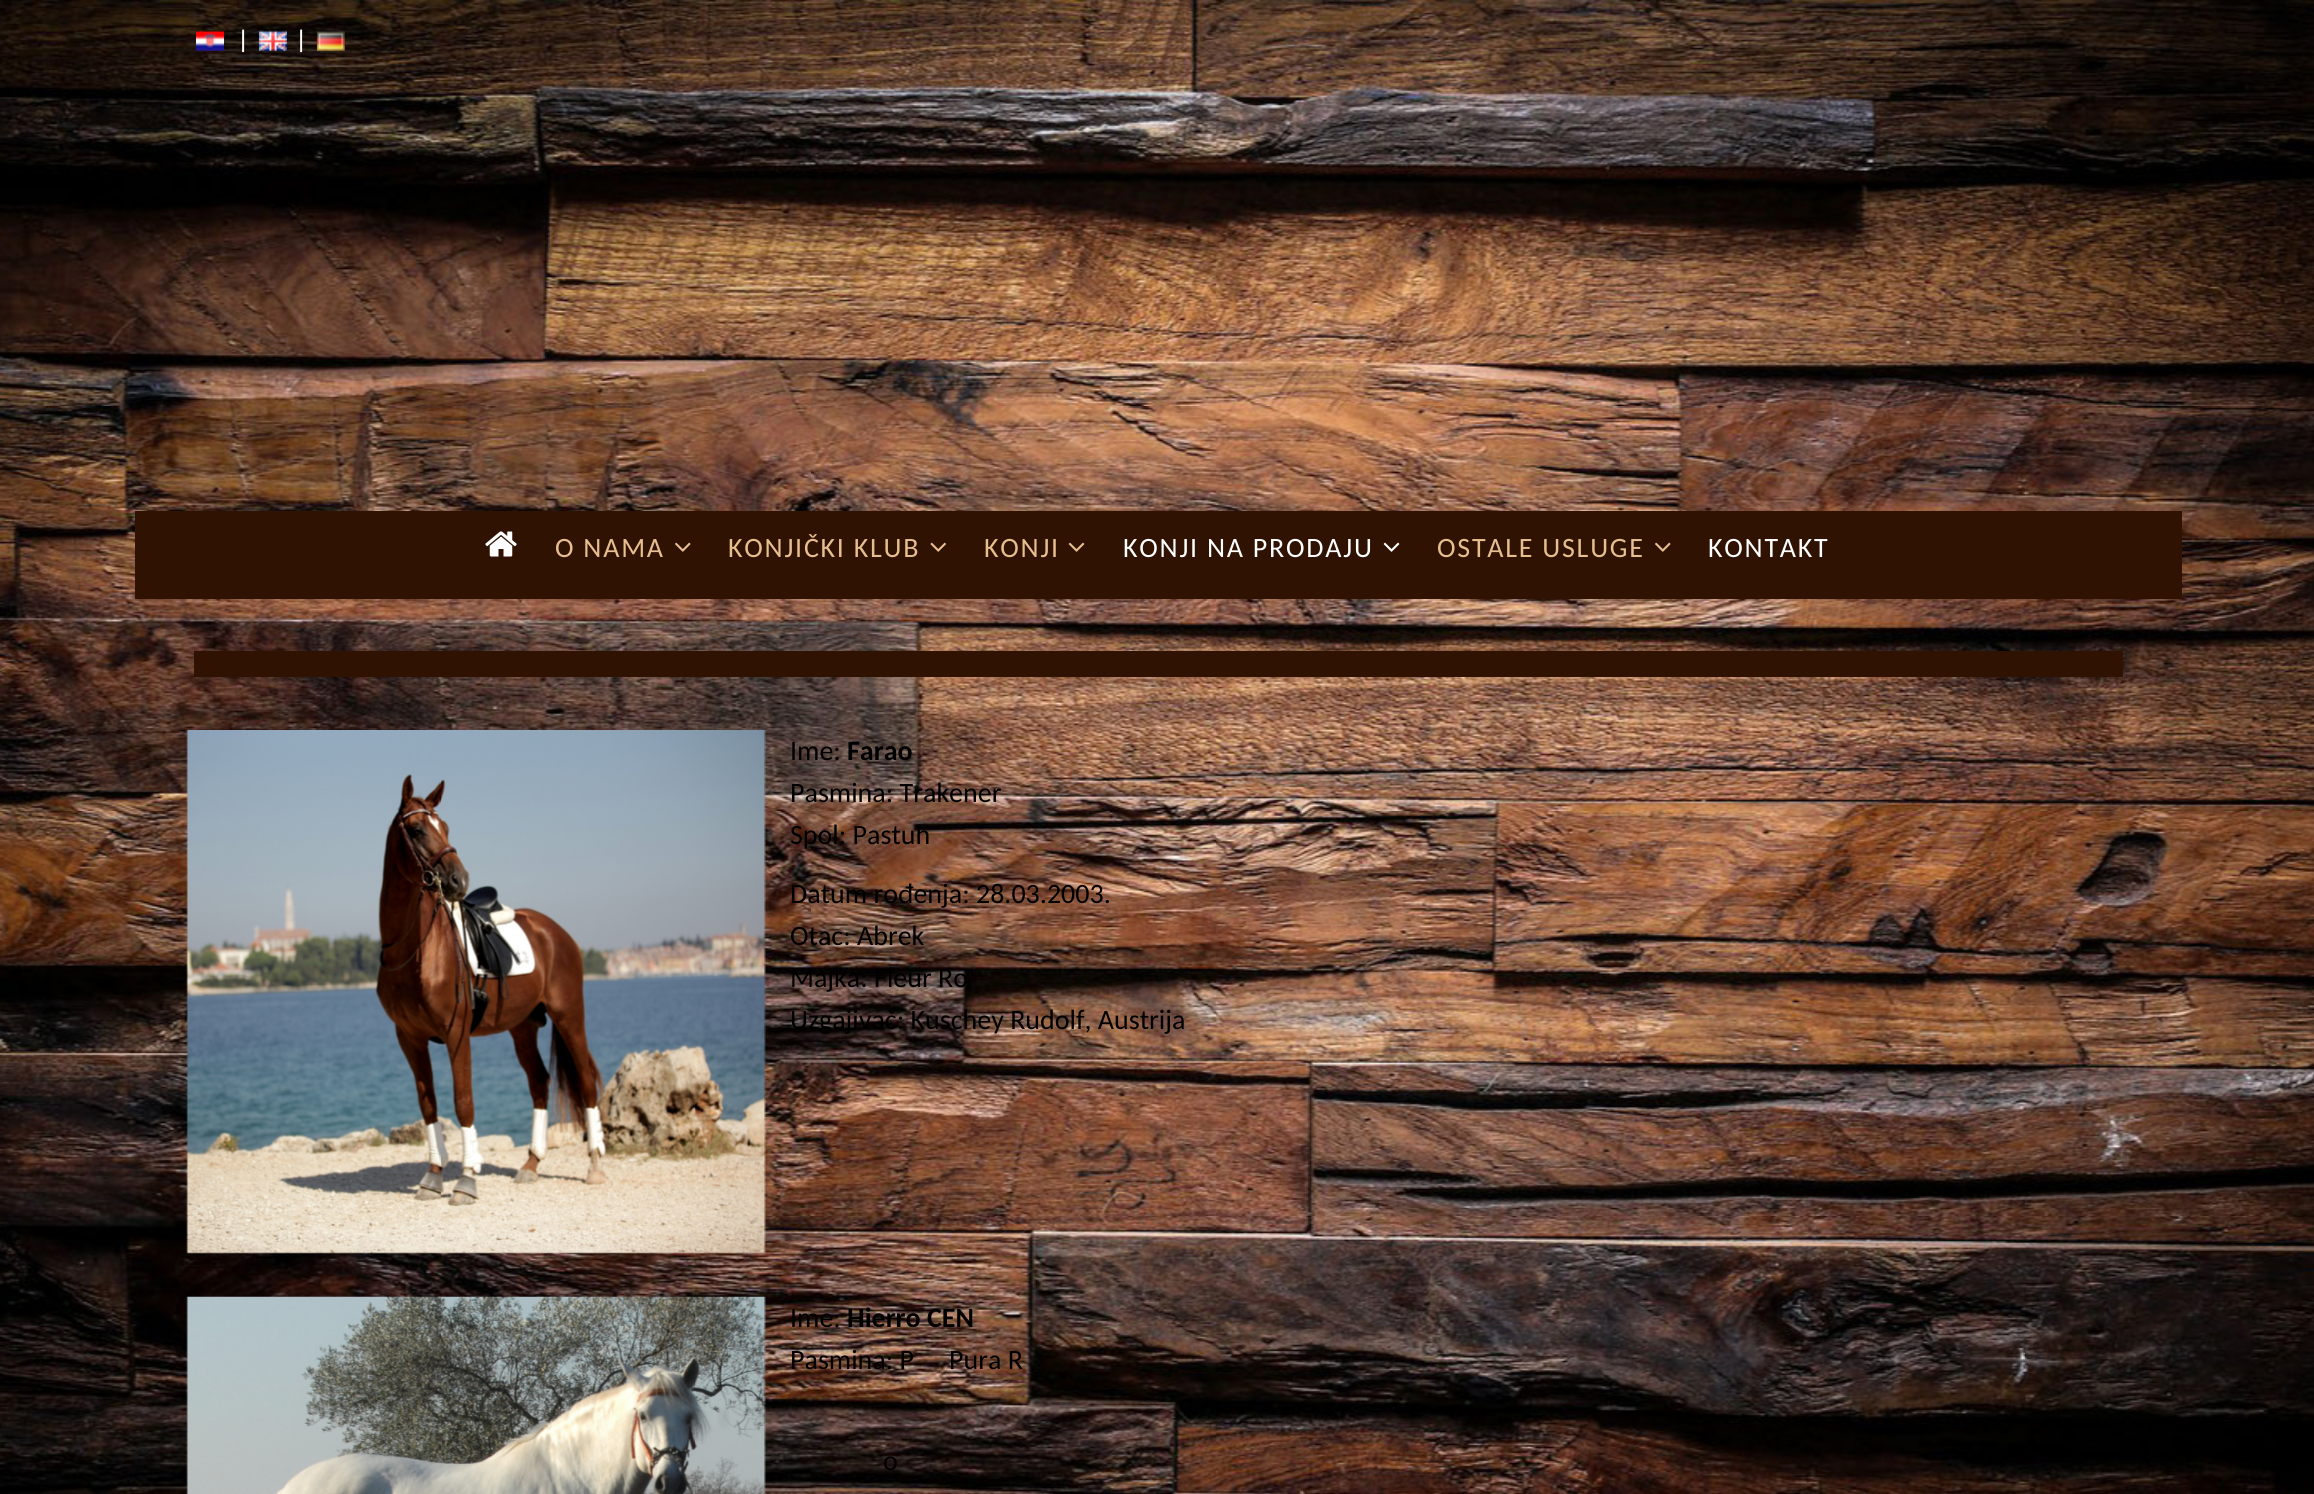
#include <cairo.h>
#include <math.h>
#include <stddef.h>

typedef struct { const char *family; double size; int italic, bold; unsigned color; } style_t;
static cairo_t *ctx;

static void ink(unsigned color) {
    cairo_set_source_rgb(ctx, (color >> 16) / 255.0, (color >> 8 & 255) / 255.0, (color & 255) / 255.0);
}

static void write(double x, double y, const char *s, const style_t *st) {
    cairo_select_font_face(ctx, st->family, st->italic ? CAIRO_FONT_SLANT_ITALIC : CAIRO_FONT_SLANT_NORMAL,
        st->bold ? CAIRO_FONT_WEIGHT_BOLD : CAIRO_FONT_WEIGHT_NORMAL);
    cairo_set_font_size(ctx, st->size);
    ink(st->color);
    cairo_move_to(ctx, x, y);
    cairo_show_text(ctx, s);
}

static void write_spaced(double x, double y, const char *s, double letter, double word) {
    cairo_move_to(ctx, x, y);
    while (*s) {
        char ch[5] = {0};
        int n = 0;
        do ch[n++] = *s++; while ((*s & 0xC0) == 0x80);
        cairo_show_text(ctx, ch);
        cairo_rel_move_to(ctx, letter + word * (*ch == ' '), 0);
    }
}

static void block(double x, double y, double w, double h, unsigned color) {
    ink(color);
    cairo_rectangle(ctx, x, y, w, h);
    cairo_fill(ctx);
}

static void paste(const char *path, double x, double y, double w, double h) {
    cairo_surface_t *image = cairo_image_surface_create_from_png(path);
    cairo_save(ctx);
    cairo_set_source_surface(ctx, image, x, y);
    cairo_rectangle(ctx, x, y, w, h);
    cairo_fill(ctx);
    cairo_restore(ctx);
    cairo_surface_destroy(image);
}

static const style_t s1 = {"Liberation Sans", 24, 0, 0, 0xffffff};
static const style_t s2 = {"Carlito", 28, 0, 0, 0x000000};
static const style_t s3 = {"Carlito", 28, 0, 1, 0x000000};

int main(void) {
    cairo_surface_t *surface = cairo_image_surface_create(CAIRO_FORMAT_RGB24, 2314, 1494);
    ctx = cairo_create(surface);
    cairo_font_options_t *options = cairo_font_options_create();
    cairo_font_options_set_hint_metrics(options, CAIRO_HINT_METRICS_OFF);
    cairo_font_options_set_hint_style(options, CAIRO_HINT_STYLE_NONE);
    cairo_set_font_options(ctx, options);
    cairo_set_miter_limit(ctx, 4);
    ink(0xffffff);
    cairo_paint(ctx);
    paste("pic1.png", 0, 0, 2314, 1494);
    paste("pic2.png", 196, 30, 28, 21);
    write(240, 47, "|", &s1);
    paste("pic3.png", 259, 30, 28, 21);
    write(298, 47, "|", &s1);
    paste("pic4.png", 316, 31, 29, 20);
    block(135, 511, 2047, 88, 0x2f1202);
    paste("pic5.png", 485, 531, 32, 26);
    cairo_select_font_face(ctx, "Carlito", CAIRO_FONT_SLANT_NORMAL, CAIRO_FONT_WEIGHT_NORMAL);
    cairo_set_font_size(ctx, 28);
    ink(0xe7be90);
    write_spaced(555, 557, "O NAMA", 1.75, 0);
    paste("pic6.png", 675, 542, 16, 10);
    write_spaced(728, 557, "KONJIČKI KLUB", 1.75, 0);
    paste("pic7.png", 930, 542, 16, 10);
    write_spaced(984, 557, "KONJI", 1.75, 0);
    paste("pic8.png", 1068, 542, 17, 10);
    ink(0xffffff);
    write_spaced(1123, 557, "KONJI NA PRODAJU", 1.75, 0);
    paste("pic9.png", 1383, 542, 17, 10);
    ink(0xe7be90);
    write_spaced(1437, 557, "OSTALE USLUGE", 1.75, 0);
    paste("pic6.png", 1655, 542, 16, 10);
    ink(0xffffff);
    write_spaced(1708, 557, "KONTAKT", 1.75, 0);
    block(194, 651, 1929, 26, 0x2f1202);
    paste("pic10.png", 186, 730, 580, 524);
    write(790, 760, "Ime:", &s2);
    write(847, 760, "Farao", &s3);
    write(790, 802, "Pasmina: Trakener", &s2);
    write(790, 844, "Spol: Pastuh", &s2);
    write(790, 903, "Datum rođenja: 28.03.2003.", &s2);
    write(790, 945, "Otac: Abrek", &s2);
    write(790, 987, "Majka: Fleur Ro", &s2);
    write(790, 1029, "Uzgajivač: Kuschey Rudolf, Austrija", &s2);
    paste("pic11.png", 186, 1296, 580, 198);
    write(790, 1327, "Ime:", &s2);
    write(847, 1327, "Hierro CEN", &s3);
    write(790, 1369, "Pasmina: P", &s2);
    write(949, 1369, "Pura R", &s2);
    write(883, 1470, "o", &s2);
    cairo_surface_write_to_png(surface, "screenshot.png");
    cairo_font_options_destroy(options);
    cairo_destroy(ctx);
    cairo_surface_destroy(surface);
    return 0;
}
